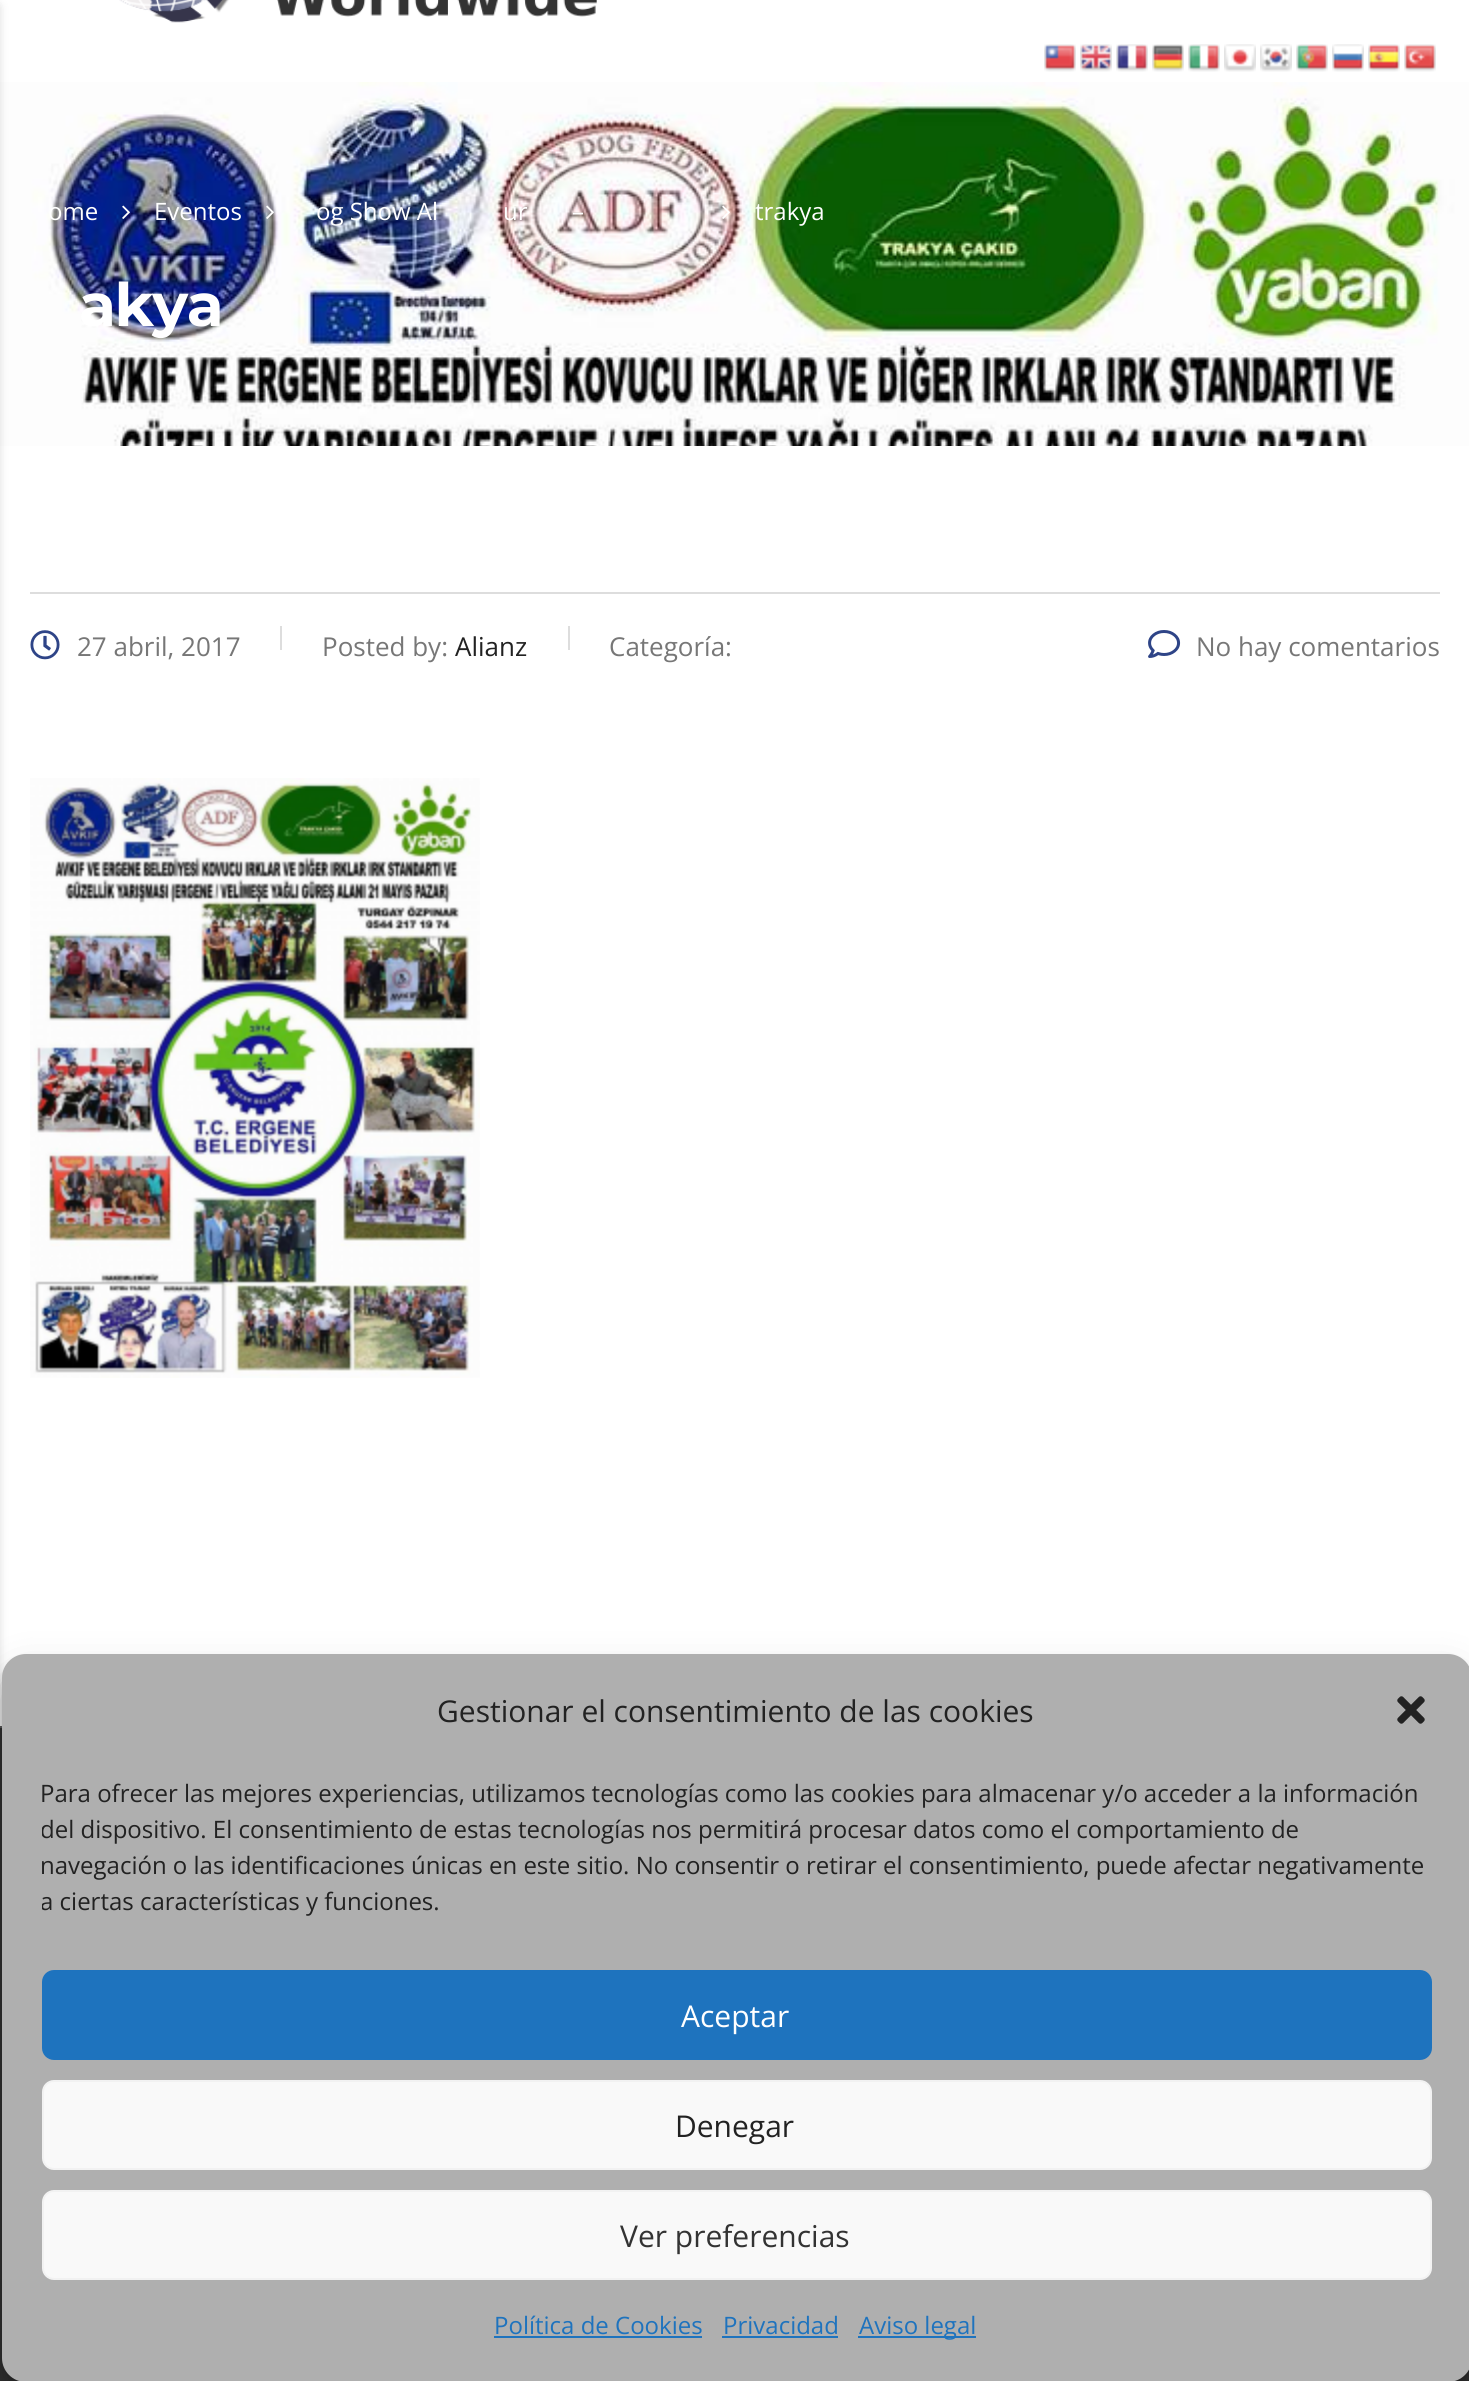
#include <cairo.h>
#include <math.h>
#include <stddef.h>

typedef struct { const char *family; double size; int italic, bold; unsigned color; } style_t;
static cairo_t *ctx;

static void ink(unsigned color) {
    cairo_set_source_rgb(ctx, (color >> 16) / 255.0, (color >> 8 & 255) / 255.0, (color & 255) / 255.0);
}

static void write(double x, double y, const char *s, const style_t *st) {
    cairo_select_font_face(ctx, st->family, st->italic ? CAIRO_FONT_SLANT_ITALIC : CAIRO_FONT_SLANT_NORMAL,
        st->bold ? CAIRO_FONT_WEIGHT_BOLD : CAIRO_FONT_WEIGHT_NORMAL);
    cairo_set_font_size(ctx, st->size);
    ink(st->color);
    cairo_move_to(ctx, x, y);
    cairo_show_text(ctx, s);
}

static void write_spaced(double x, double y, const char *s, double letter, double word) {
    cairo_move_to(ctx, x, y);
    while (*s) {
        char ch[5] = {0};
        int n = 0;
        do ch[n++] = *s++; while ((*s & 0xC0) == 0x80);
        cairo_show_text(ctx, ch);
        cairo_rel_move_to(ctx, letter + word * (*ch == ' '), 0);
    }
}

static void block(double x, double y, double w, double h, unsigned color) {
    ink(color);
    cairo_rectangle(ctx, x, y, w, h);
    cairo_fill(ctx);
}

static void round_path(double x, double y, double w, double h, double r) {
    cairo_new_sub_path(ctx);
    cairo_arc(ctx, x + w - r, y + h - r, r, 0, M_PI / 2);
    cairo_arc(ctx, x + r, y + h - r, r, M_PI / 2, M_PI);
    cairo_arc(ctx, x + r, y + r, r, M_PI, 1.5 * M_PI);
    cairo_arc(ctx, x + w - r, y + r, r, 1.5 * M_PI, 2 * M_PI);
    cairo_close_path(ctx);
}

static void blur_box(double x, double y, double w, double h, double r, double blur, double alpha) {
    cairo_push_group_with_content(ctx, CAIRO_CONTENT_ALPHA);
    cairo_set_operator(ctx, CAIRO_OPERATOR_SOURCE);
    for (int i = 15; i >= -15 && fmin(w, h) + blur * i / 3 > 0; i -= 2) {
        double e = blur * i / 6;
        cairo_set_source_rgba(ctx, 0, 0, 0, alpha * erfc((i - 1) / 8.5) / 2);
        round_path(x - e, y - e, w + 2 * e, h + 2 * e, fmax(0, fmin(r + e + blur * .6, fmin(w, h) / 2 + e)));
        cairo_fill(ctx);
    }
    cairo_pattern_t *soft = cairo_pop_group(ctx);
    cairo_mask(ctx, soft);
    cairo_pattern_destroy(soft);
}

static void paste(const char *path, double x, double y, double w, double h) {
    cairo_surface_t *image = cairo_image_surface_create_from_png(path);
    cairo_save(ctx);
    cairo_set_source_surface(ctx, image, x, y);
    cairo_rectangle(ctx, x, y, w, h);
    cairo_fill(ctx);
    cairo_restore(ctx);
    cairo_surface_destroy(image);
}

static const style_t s1 = {"Open Sans", 24, 0, 0, 0xffffff};
static const style_t s2 = {"Open Sans", 26, 0, 0, 0x777777};
static const style_t s3 = {"Open Sans", 26, 0, 0, 0x222222};
static const style_t s4 = {"Open Sans", 30, 0, 0, 0x222222};
static const style_t s5 = {"Open Sans", 24, 0, 0, 0x222222};
static const style_t s6 = {"Open Sans", 30, 0, 0, 0xffffff};
static const style_t s7 = {"Open Sans", 30, 0, 0, 0x333333};
static const style_t s8 = {"Open Sans", 24, 0, 0, 0x1e73be};

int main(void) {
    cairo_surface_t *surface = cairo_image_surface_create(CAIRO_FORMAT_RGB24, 1469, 2381);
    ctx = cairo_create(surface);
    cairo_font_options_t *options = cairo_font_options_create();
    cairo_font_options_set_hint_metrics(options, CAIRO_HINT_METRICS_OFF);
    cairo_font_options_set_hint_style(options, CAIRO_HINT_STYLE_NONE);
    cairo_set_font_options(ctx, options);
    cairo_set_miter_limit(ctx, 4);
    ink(0xffffff);
    cairo_paint(ctx);
    paste("pic1.png", 1044, 44, 32, 28);
    paste("pic2.png", 1080, 44, 32, 28);
    paste("pic3.png", 1116, 44, 32, 28);
    paste("pic4.png", 1152, 44, 32, 28);
    paste("pic5.png", 1188, 44, 32, 28);
    paste("pic6.png", 1224, 44, 32, 28);
    paste("pic7.png", 1260, 44, 32, 28);
    paste("pic8.png", 1296, 44, 32, 28);
    paste("pic9.png", 1332, 44, 32, 28);
    paste("pic10.png", 1368, 44, 32, 28);
    paste("pic11.png", 1404, 44, 32, 28);
    paste("pic13.png", 0, 82, 1469, 364);
    block(0, 1728, 1469, 653, 0x333333);
    block(0, 1726, 2, 2, 0x626262);
    ink(0x000000);
    blur_box(-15, 6, 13, 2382, 0, 5, 0.2);
    paste("pic12.png", 119, 0, 478, 23);
    write(48, 220, "ome", &s1);
    paste("pic14.png", 122, 205, 8, 14);
    write(154, 220, "Eventos", &s1);
    paste("pic15.png", 266, 205, 8, 14);
    write(316, 220, "og Show Al", &s1);
    write(503, 220, "ur", &s1);
    write(572, 220, "–", &s1);
    paste("pic16.png", 722, 205, 8, 14);
    write(755, 220, "trakya", &s1);
    cairo_select_font_face(ctx, "Montserrat", CAIRO_FONT_SLANT_NORMAL, CAIRO_FONT_WEIGHT_BOLD);
    cairo_set_font_size(ctx, 60);
    write_spaced(79, 326, "akya", -1.5, 0);
    block(30, 592, 1410, 2, 0xdddddd);
    paste("pic17.png", 30, 630, 30, 30);
    write(77, 656, "27 abril, 2017", &s2);
    block(280, 626, 2, 24, 0xdddddd);
    write(322, 656, "Posted by:", &s2);
    write(455, 656, "Alianz", &s3);
    block(568, 626, 2, 24, 0xdddddd);
    write(609, 656, "Categoría:", &s2);
    paste("pic18.png", 1148, 630, 33, 28);
    write(1196, 656, "No hay comentarios", &s2);
    paste("pic19.png", 30, 778, 450, 600);
    ink(0x000000);
    blur_box(2, 1666, 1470, 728, 24, 6, 0.23);
    blur_box(2, 1674, 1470, 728, 24, 20, 0.19);
    ink(0xafafaf);
    round_path(2, 1654, 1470, 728, 24);
    cairo_fill(ctx);
    write(437, 1722, "Gestionar el consentimiento de las cookies", &s4);
    paste("pic20.png", 1397, 1696, 28, 28);
    write(40, 1802, "Para ofrecer las mejores experiencias, utilizamos tecnologías como las cookies para almacenar y/o acceder a la información", &s5);
    cairo_save(ctx);
    cairo_rectangle(ctx, 42, 1776, 1390, 154);
    cairo_clip(ctx);
    write(40, 1838, "del dispositivo. El consentimiento de estas tecnologías nos permitirá procesar datos como el comportamiento de", &s5);
    cairo_restore(ctx);
    write(40, 1874, "navegación o las identificaciones únicas en este sitio. No consentir o retirar el consentimiento, puede afectar negativamente", &s5);
    cairo_save(ctx);
    cairo_rectangle(ctx, 42, 1776, 1390, 154);
    cairo_clip(ctx);
    write(40, 1910, "a ciertas características y funciones.", &s5);
    cairo_restore(ctx);
    ink(0x1e73be);
    round_path(43, 1971, 1388, 88, 11);
    cairo_fill_preserve(ctx);
    cairo_stroke(ctx);
    write(681, 2027, "Aceptar", &s6);
    ink(0xf9f9f9);
    round_path(43, 2081, 1388, 88, 11);
    cairo_fill_preserve(ctx);
    ink(0xf2f2f2);
    cairo_stroke(ctx);
    write(675, 2137, "Denegar", &s4);
    ink(0xf9f9f9);
    round_path(43, 2191, 1388, 88, 11);
    cairo_fill_preserve(ctx);
    ink(0xf2f2f2);
    cairo_stroke(ctx);
    write(620, 2247, "Ver preferencias", &s7);
    write(494, 2334, "Política de Cookies", &s8);
    block(494, 2336, 208, 2, 0x1e73be);
    write(723, 2334, "Privacidad", &s8);
    block(722, 2336, 116, 2, 0x1e73be);
    block(858, 2336, 118, 2, 0x1e73be);
    write(859, 2334, "Aviso legal", &s8);
    cairo_surface_write_to_png(surface, "screenshot.png");
    cairo_font_options_destroy(options);
    cairo_destroy(ctx);
    cairo_surface_destroy(surface);
    return 0;
}
